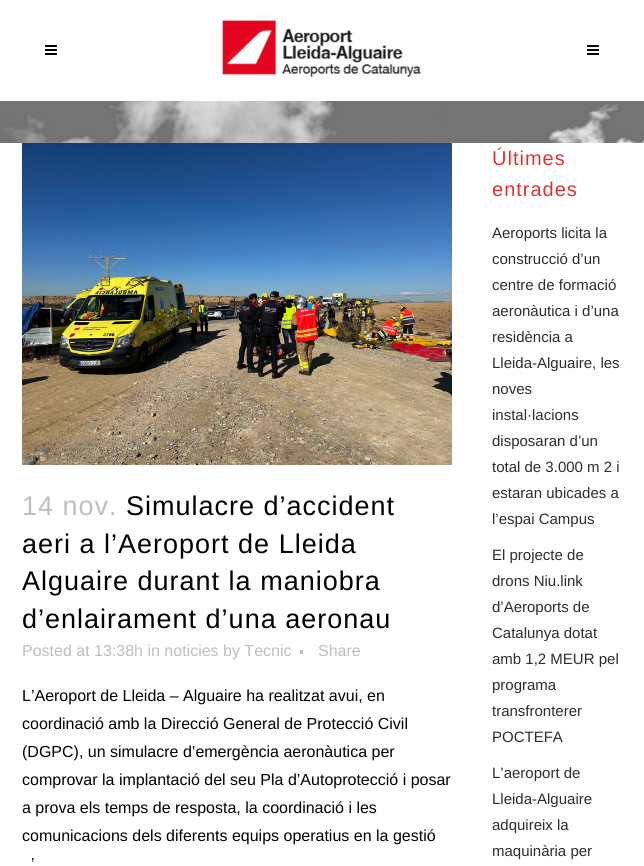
#include <cairo.h>
#include <math.h>
#include <stddef.h>

typedef struct { const char *family; double size; int italic, bold; unsigned color; } style_t;
static cairo_t *ctx;

static void ink(unsigned color) {
    cairo_set_source_rgb(ctx, (color >> 16) / 255.0, (color >> 8 & 255) / 255.0, (color & 255) / 255.0);
}

static void write(double x, double y, const char *s, const style_t *st) {
    cairo_select_font_face(ctx, st->family, st->italic ? CAIRO_FONT_SLANT_ITALIC : CAIRO_FONT_SLANT_NORMAL,
        st->bold ? CAIRO_FONT_WEIGHT_BOLD : CAIRO_FONT_WEIGHT_NORMAL);
    cairo_set_font_size(ctx, st->size);
    ink(st->color);
    cairo_move_to(ctx, x, y);
    cairo_show_text(ctx, s);
}

static void write_spaced(double x, double y, const char *s, double letter, double word) {
    cairo_move_to(ctx, x, y);
    while (*s) {
        char ch[5] = {0};
        int n = 0;
        do ch[n++] = *s++; while ((*s & 0xC0) == 0x80);
        cairo_show_text(ctx, ch);
        cairo_rel_move_to(ctx, letter + word * (*ch == ' '), 0);
    }
}

static void block(double x, double y, double w, double h, unsigned color) {
    ink(color);
    cairo_rectangle(ctx, x, y, w, h);
    cairo_fill(ctx);
}

static void paste(const char *path, double x, double y, double w, double h) {
    cairo_surface_t *image = cairo_image_surface_create_from_png(path);
    cairo_save(ctx);
    cairo_set_source_surface(ctx, image, x, y);
    cairo_rectangle(ctx, x, y, w, h);
    cairo_fill(ctx);
    cairo_restore(ctx);
    cairo_surface_destroy(image);
}

static const style_t s1 = {"Liberation Sans", 16, 0, 0, 0xbebebe};
static const style_t s2 = {"Liberation Sans", 16, 0, 0, 0x000000};
static const style_t s3 = {"Liberation Sans", 15, 0, 0, 0x2d2d2d};

int main(void) {
    cairo_surface_t *surface = cairo_image_surface_create(CAIRO_FORMAT_RGB24, 644, 866);
    ctx = cairo_create(surface);
    cairo_font_options_t *options = cairo_font_options_create();
    cairo_font_options_set_hint_metrics(options, CAIRO_HINT_METRICS_OFF);
    cairo_font_options_set_hint_style(options, CAIRO_HINT_STYLE_NONE);
    cairo_set_font_options(ctx, options);
    cairo_set_miter_limit(ctx, 4);
    ink(0xffffff);
    cairo_paint(ctx);
    paste("pic1.png", 45, 45, 12, 10);
    paste("pic2.png", 222, 20, 199, 57);
    paste("pic1.png", 587, 45, 12, 10);
    paste("pic3.png", 0, 101, 644, 42);
    paste("pic4.png", 22, 143, 430, 322);
    cairo_select_font_face(ctx, "Liberation Sans", CAIRO_FONT_SLANT_NORMAL, CAIRO_FONT_WEIGHT_NORMAL);
    cairo_set_font_size(ctx, 27);
    ink(0xbebebe);
    write_spaced(22, 515, "14 nov.", 1, 0);
    ink(0x000000);
    write_spaced(126, 515, "Simulacre d’accident", 1, 0);
    write_spaced(22, 553, "aeri a l’Aeroport de Lleida", 1, 0);
    write_spaced(22, 590, "Alguaire durant la maniobra", 1, 0);
    write_spaced(22, 628, "d’enlairament d’una aeronau", 1, 0);
    write(22, 656, "Posted at 13:38h in noticies by Tecnic", &s1);
    block(300, 650, 3, 4, 0xbebebe);
    write(318, 656, "Share", &s1);
    write(22, 701, "L’Aeroport de Lleida – Alguaire ha realitzat avui, en", &s2);
    write(22, 729, "coordinació amb la Direcció General de Protecció Civil", &s2);
    write(22, 757, "(DGPC), un simulacre d’emergència aeronàutica per", &s2);
    write(22, 785, "comprovar la implantació del seu Pla d’Autoprotecció i posar", &s2);
    write(22, 813, "a prova els temps de resposta, la coordinació i les", &s2);
    write(22, 841, "comunicacions dels diferents equips operatius en la gestió", &s2);
    write(31, 869, "’", &s2);
    cairo_set_font_size(ctx, 20);
    ink(0xdd3333);
    write_spaced(492, 165, "Últimes", 1, 0);
    write_spaced(492, 196, "entrades", 1, 0);
    write(492, 238, "Aeroports licita la", &s3);
    write(492, 264, "construcció d’un", &s3);
    write(492, 290, "centre de formació", &s3);
    write(492, 316, "aeronàutica i d’una", &s3);
    write(492, 342, "residència a", &s3);
    write(492, 368, "Lleida-Alguaire, les", &s3);
    write(492, 394, "noves", &s3);
    write(492, 420, "instal·lacions", &s3);
    write(492, 446, "disposaran d’un", &s3);
    write(492, 472, "total de 3.000 m 2 i", &s3);
    write(492, 498, "estaran ubicades a", &s3);
    write(492, 524, "l’espai Campus", &s3);
    write(492, 560, "El projecte de", &s3);
    write(492, 586, "drons Niu.link", &s3);
    write(492, 612, "d’Aeroports de", &s3);
    write(492, 638, "Catalunya dotat", &s3);
    write(492, 664, "amb 1,2 MEUR pel", &s3);
    write(492, 690, "programa", &s3);
    write(492, 716, "transfronterer", &s3);
    write(492, 742, "POCTEFA", &s3);
    write(492, 778, "L’aeroport de", &s3);
    write(492, 804, "Lleida-Alguaire", &s3);
    write(492, 830, "adquireix la", &s3);
    write(492, 856, "maquinària per", &s3);
    cairo_surface_write_to_png(surface, "screenshot.png");
    cairo_font_options_destroy(options);
    cairo_destroy(ctx);
    cairo_surface_destroy(surface);
    return 0;
}
